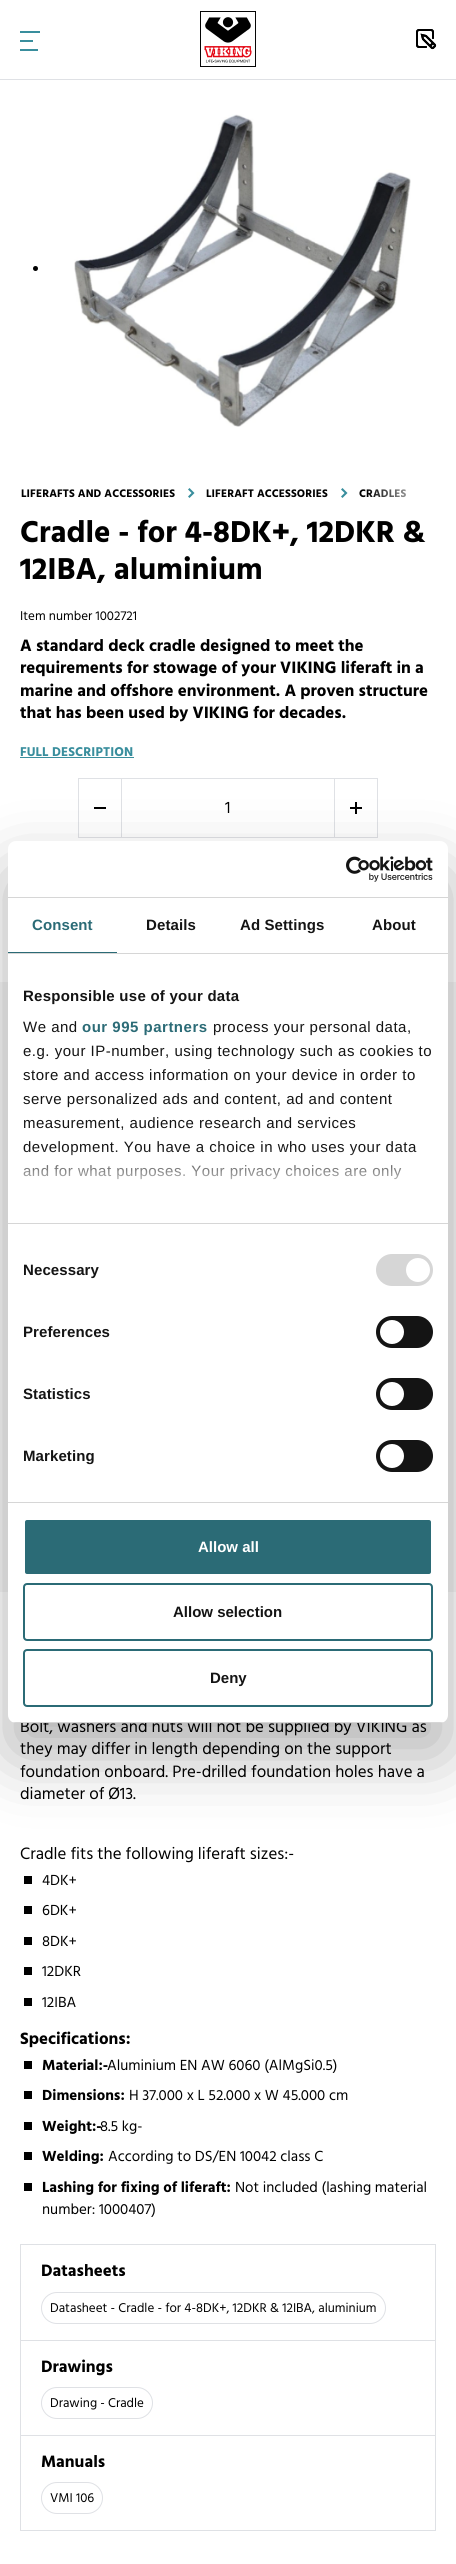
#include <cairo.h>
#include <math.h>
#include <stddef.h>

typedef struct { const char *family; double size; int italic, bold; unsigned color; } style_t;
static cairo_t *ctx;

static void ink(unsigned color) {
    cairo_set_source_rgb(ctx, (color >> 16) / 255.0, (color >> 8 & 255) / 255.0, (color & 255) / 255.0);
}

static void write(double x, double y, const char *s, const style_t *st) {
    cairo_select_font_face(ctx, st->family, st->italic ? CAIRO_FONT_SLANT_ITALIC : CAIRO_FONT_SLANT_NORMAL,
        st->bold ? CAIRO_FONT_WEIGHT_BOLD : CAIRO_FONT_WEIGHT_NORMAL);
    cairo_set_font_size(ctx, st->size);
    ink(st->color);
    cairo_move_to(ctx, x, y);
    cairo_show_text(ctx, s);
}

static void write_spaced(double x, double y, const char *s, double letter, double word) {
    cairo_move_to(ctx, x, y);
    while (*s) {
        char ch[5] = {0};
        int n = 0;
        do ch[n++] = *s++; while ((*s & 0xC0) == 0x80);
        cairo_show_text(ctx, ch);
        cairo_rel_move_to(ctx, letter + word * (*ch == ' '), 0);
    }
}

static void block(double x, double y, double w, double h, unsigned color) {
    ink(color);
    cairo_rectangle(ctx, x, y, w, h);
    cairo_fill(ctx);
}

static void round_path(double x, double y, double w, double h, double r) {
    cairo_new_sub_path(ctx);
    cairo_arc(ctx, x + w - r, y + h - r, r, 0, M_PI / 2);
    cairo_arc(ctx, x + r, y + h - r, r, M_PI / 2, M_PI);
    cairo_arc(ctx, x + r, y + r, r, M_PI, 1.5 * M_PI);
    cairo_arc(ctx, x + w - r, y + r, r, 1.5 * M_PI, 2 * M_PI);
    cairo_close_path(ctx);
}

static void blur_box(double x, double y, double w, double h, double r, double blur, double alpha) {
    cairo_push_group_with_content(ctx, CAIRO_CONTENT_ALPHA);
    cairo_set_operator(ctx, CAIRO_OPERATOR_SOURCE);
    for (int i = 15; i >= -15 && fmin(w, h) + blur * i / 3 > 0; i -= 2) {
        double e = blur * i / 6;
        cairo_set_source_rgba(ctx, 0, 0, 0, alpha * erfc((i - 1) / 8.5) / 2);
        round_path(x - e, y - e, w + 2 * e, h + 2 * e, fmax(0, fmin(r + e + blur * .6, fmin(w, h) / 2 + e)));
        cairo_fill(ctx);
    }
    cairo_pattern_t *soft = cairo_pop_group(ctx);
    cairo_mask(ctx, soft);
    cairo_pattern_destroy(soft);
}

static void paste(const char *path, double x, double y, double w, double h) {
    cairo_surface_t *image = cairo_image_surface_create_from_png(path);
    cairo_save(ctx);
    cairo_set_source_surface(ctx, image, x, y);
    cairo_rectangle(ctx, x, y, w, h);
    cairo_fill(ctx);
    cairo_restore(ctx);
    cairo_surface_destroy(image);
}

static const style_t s1 = {"Hind", 31, 0, 1, 0x000000};
static const style_t s2 = {"Hind", 13.1, 0, 0, 0x000000};
static const style_t s3 = {"Hind", 16.9, 0, 1, 0x000000};
static const style_t s4 = {"Hind", 16.9, 0, 0, 0x000000};
static const style_t s5 = {"Hind", 15, 0, 0, 0x000000};
static const style_t s6 = {"Hind", 15, 0, 1, 0x000000};
static const style_t s7 = {"Liberation Sans", 15, 0, 1, 0xffffff};
static const style_t s8 = {"Liberation Sans", 15, 0, 1, 0x141414};

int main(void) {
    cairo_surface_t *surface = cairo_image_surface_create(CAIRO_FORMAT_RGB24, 456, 2564);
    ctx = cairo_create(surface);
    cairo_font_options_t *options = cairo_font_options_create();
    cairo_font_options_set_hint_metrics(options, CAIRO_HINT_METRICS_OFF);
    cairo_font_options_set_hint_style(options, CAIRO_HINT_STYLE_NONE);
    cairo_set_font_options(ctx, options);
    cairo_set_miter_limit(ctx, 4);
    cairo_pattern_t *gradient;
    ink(0xffffff);
    cairo_paint(ctx);
    block(0, 79, 456, 1, 0xdfe1e5);
    block(20, 31, 20, 2, 0x398e9d);
    block(20, 40, 13, 2, 0x398e9d);
    block(20, 49, 18, 2, 0x398e9d);
    paste("pic1.png", 200, 11, 56, 56);
    paste("pic2.png", 416, 29, 21, 21);
    ink(0x000000);
    cairo_arc(ctx, 35.5, 268.5, 2.5, 0, 2 * M_PI);
    cairo_fill(ctx);
    paste("pic3.png", 74, 114, 337, 313);
    cairo_select_font_face(ctx, "Hind", CAIRO_FONT_SLANT_NORMAL, CAIRO_FONT_WEIGHT_BOLD);
    cairo_set_font_size(ctx, 11.25);
    write_spaced(21, 497, "LIFERAFTS AND ACCESSORIES", 0.1, 0);
    paste("pic4.png", 188, 488, 7, 10);
    write_spaced(206, 497, "LIFERAFT ACCESSORIES", 0.1, 0);
    paste("pic4.png", 341, 488, 7, 10);
    write_spaced(359, 497, "CRADLES", 0.1, 0);
    gradient = cairo_pattern_create_linear(366, 496, 436, 496);
    cairo_pattern_add_color_stop_rgba(gradient, 0, 1, 1, 1, 0);
    cairo_pattern_add_color_stop_rgba(gradient, 1, 1, 1, 1, 1);
    cairo_set_source(ctx, gradient);
    cairo_pattern_destroy(gradient);
    cairo_rectangle(ctx, 368, 489, 38, 9);
    cairo_fill(ctx);
    write(20, 542, "Cradle - for 4-8DK+, 12DKR &", &s1);
    write(20, 579, "12IBA, aluminium", &s1);
    write(20, 620, "Item number 1002721", &s2);
    write(20, 651, "A standard deck cradle designed to meet the", &s3);
    write(20, 673, "requirements for stowage of your VIKING liferaft in a", &s3);
    write(20, 696, "marine and offshore environment. A proven structure", &s3);
    write(20, 718, "that has been used by VIKING for decades.", &s3);
    cairo_set_font_size(ctx, 13.1);
    ink(0x398e9d);
    write_spaced(20, 756, "FULL DESCRIPTION", 0.1, 0);
    block(20, 757, 114, 1, 0x398e9d);
    cairo_rectangle(ctx, 78.5, 778.5, 43, 59);
    ink(0xdfe1e5);
    cairo_set_line_width(ctx, 1);
    cairo_stroke(ctx);
    block(94, 807, 12, 2, 0x000000);
    block(122, 778, 212, 1, 0xdfe1e5);
    block(122, 837, 212, 1, 0xdfe1e5);
    write(225, 813, "1", &s4);
    cairo_rectangle(ctx, 334.5, 778.5, 43, 59);
    ink(0xdfe1e5);
    cairo_stroke(ctx);
    paste("pic5.png", 350, 802, 12, 12);
    block(0, 982, 456, 610, 0xf5f5f5);
    write(20, 1732, "Bolt, washers and nuts will not be supplied by VIKING as", &s4);
    write(20, 1754, "they may differ in length depending on the support", &s4);
    write(20, 1777, "foundation onboard. Pre-drilled foundation holes have a", &s4);
    write(20, 1799, "diameter of Ø13.", &s4);
    write(20, 1859, "Cradle fits the following liferaft sizes:-", &s4);
    block(24, 1876, 8, 8, 0x000000);
    write(42, 1885, "4DK+", &s5);
    block(24, 1906, 8, 8, 0x000000);
    write(42, 1915, "6DK+", &s5);
    block(24, 1937, 8, 8, 0x000000);
    write(42, 1946, "8DK+", &s5);
    block(24, 1967, 8, 8, 0x000000);
    write(42, 1976, "12DKR", &s5);
    block(24, 1998, 8, 8, 0x000000);
    write(42, 2007, "12IBA", &s5);
    write(20, 2044, "Specifications:", &s3);
    block(24, 2061, 8, 8, 0x000000);
    write(42, 2070, "Material:-", &s6);
    write(107, 2070, "Aluminium EN AW 6060 (AlMgSi0.5)", &s5);
    block(24, 2091, 8, 8, 0x000000);
    write(42, 2100, "Dimensions:", &s6);
    write(129, 2100, "H 37.000 x L 52.000 x W 45.000 cm", &s5);
    block(24, 2122, 8, 8, 0x000000);
    write(42, 2131, "Weight:-", &s6);
    write(100, 2131, "8.5 kg-", &s5);
    block(24, 2152, 8, 8, 0x000000);
    write(42, 2161, "Welding:", &s6);
    write(108, 2161, "According to DS/EN 10042 class C", &s5);
    block(24, 2183, 8, 8, 0x000000);
    write(42, 2192, "Lashing for fixing of liferaft:", &s6);
    write(235, 2192, "Not included (lashing material", &s5);
    write(42, 2214, "number: 1000407)", &s5);
    cairo_rectangle(ctx, 20.5, 2244.5, 415, 96);
    ink(0xdfe1e5);
    cairo_stroke(ctx);
    write(41, 2276, "Datasheets", &s3);
    round_path(41.5, 2292.5, 344, 31, 15.5);
    ink(0xdfe1e5);
    cairo_stroke(ctx);
    write(50, 2312, "Datasheet - Cradle - for 4-8DK+, 12DKR & 12IBA, aluminium", &s2);
    block(435, 2341, 1, 190, 0xdfe1e5);
    block(20, 2435, 416, 1, 0xdfe1e5);
    block(20, 2341, 1, 95, 0xdfe1e5);
    write(41, 2372, "Drawings", &s3);
    round_path(41.5, 2387.5, 111, 31, 15.5);
    ink(0xdfe1e5);
    cairo_stroke(ctx);
    write(50, 2407, "Drawing - Cradle", &s2);
    block(20, 2530, 416, 1, 0xdfe1e5);
    block(20, 2436, 1, 95, 0xdfe1e5);
    write(41, 2467, "Manuals", &s3);
    round_path(41.5, 2482.5, 61, 31, 15.5);
    ink(0xdfe1e5);
    cairo_stroke(ctx);
    write(50, 2502, "VMI 106", &s2);
    ink(0x000000);
    blur_box(8, 873, 440, 882, 8, 34, 0.3);
    ink(0xffffff);
    round_path(8, 841, 440, 882, 8);
    cairo_fill(ctx);
    block(8, 897, 440, 1, 0xd6d6d6);
    paste("pic6.png", 346, 856, 87, 26);
    block(8, 953, 440, 1, 0xd6d6d6);
    block(8, 952, 109, 1, 0x2b6b76);
    cairo_select_font_face(ctx, "Liberation Sans", CAIRO_FONT_SLANT_NORMAL, CAIRO_FONT_WEIGHT_BOLD);
    cairo_set_font_size(ctx, 15);
    write_spaced(32, 930, "Consent", 0.1, 0);
    ink(0x141414);
    write_spaced(146, 930, "Details", 0.1, 0);
    write_spaced(240, 930, "Ad Settings", 0.1, 0);
    write_spaced(372, 930, "About", 0.1, 0);
    block(8, 1223, 440, 1, 0xd6d6d6);
    ink(0x141414);
    write_spaced(23, 1001, "Responsible use of your data", 0.25, 0);
    cairo_select_font_face(ctx, "Liberation Sans", CAIRO_FONT_SLANT_NORMAL, CAIRO_FONT_WEIGHT_NORMAL);
    write_spaced(23, 1032, "We and", 0.5, 0);
    cairo_select_font_face(ctx, "Liberation Sans", CAIRO_FONT_SLANT_NORMAL, CAIRO_FONT_WEIGHT_BOLD);
    ink(0x2b6b76);
    write_spaced(82, 1032, "our 995 partners", 0.5, 0);
    cairo_select_font_face(ctx, "Liberation Sans", CAIRO_FONT_SLANT_NORMAL, CAIRO_FONT_WEIGHT_NORMAL);
    ink(0x141414);
    write_spaced(213, 1032, "process your personal data,", 0.5, 0);
    write_spaced(23, 1056, "e.g. your IP-number, using technology such as cookies to", 0.5, 0);
    write_spaced(23, 1080, "store and access information on your device in order to", 0.5, 0);
    write_spaced(23, 1104, "serve personalized ads and content, ad and content", 0.5, 0);
    write_spaced(23, 1128, "measurement, audience research and services", 0.5, 0);
    write_spaced(23, 1152, "development. You have a choice in who uses your data", 0.5, 0);
    write_spaced(23, 1176, "and for what purposes. Your privacy choices are only", 0.5, 0);
    gradient = cairo_pattern_create_linear(222, 1223, 222, 1148);
    cairo_pattern_add_color_stop_rgba(gradient, 0, 1, 1, 1, 1);
    cairo_pattern_add_color_stop_rgba(gradient, 0.5, 1, 1, 1, 0.8);
    cairo_pattern_add_color_stop_rgba(gradient, 1, 1, 1, 1, 0);
    cairo_set_source(ctx, gradient);
    cairo_pattern_destroy(gradient);
    cairo_rectangle(ctx, 23, 1149, 394, 31);
    cairo_fill(ctx);
    block(8, 1502, 440, 1, 0xd6d6d6);
    cairo_select_font_face(ctx, "Liberation Sans", CAIRO_FONT_SLANT_NORMAL, CAIRO_FONT_WEIGHT_BOLD);
    ink(0x141414);
    write_spaced(23, 1275, "Necessary", 0.1, 0);
    ink(0xd6d6d6);
    round_path(376, 1254, 57, 32, 16);
    cairo_fill(ctx);
    ink(0xffffff);
    cairo_arc(ctx, 418, 1270, 12, 0, 2 * M_PI);
    cairo_fill(ctx);
    ink(0x141414);
    write_spaced(23, 1337, "Preferences", 0.1, 0);
    round_path(376, 1316, 57, 32, 16);
    cairo_fill(ctx);
    ink(0xffffff);
    cairo_arc(ctx, 392, 1332, 12, 0, 2 * M_PI);
    cairo_fill(ctx);
    ink(0x141414);
    write_spaced(23, 1399, "Statistics", 0.1, 0);
    round_path(376, 1378, 57, 32, 16);
    cairo_fill(ctx);
    ink(0xffffff);
    cairo_arc(ctx, 392, 1394, 12, 0, 2 * M_PI);
    cairo_fill(ctx);
    ink(0x141414);
    write_spaced(23, 1461, "Marketing", 0.1, 0);
    round_path(376, 1440, 57, 32, 16);
    cairo_fill(ctx);
    ink(0xffffff);
    cairo_arc(ctx, 392, 1456, 12, 0, 2 * M_PI);
    cairo_fill(ctx);
    cairo_save(ctx);
    round_path(8, 841, 440, 882, 8);
    cairo_clip(ctx);
    block(8, 1722, 440, 1, 0xd6d6d6);
    cairo_restore(ctx);
    ink(0x2b6b76);
    round_path(24, 1519, 408, 56, 3);
    cairo_fill_preserve(ctx);
    ink(0xffffff);
    cairo_set_line_width(ctx, 2);
    cairo_stroke(ctx);
    write(198, 1552, "Allow all", &s7);
    round_path(24, 1584, 408, 56, 3);
    ink(0x2b6b76);
    cairo_stroke(ctx);
    write(173, 1617, "Allow selection", &s8);
    round_path(24, 1650, 408, 56, 3);
    ink(0x2b6b76);
    cairo_stroke(ctx);
    write(210, 1683, "Deny", &s8);
    cairo_surface_write_to_png(surface, "screenshot.png");
    cairo_font_options_destroy(options);
    cairo_destroy(ctx);
    cairo_surface_destroy(surface);
    return 0;
}
